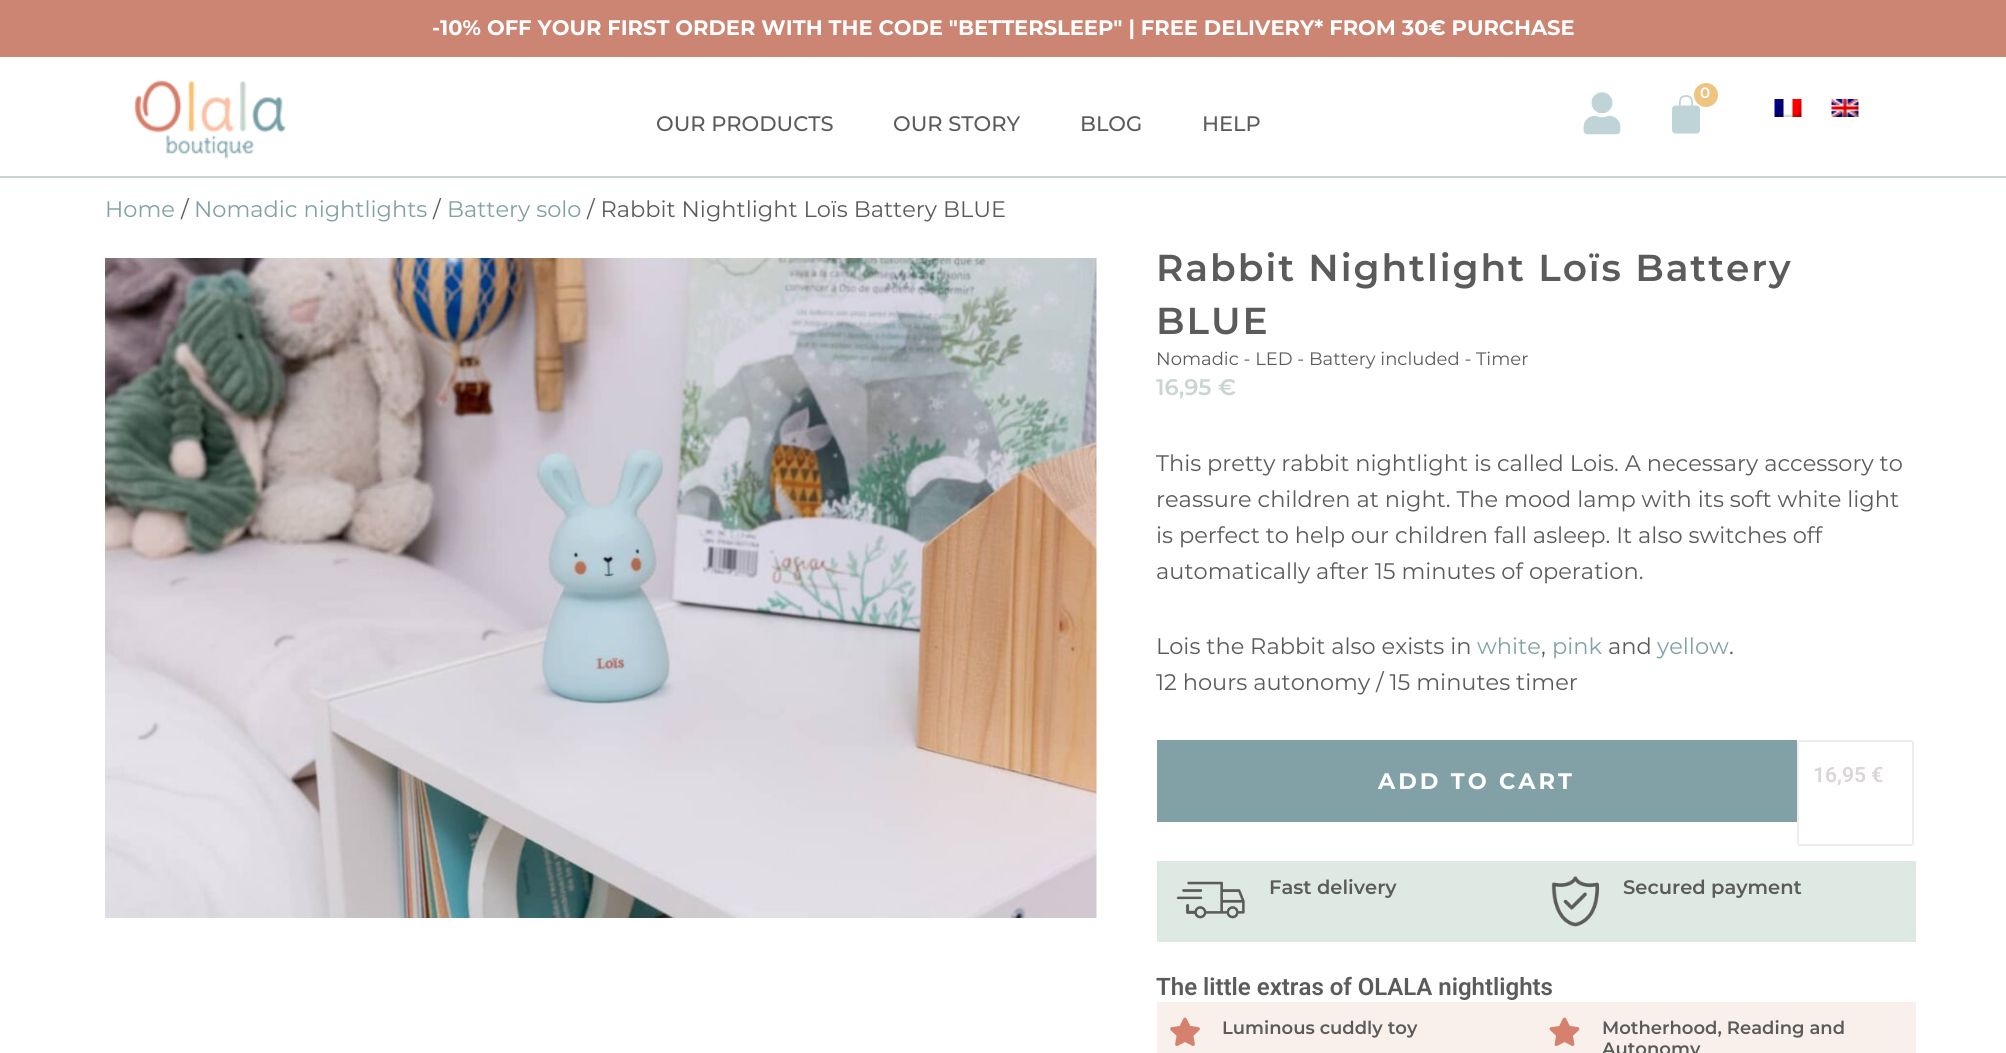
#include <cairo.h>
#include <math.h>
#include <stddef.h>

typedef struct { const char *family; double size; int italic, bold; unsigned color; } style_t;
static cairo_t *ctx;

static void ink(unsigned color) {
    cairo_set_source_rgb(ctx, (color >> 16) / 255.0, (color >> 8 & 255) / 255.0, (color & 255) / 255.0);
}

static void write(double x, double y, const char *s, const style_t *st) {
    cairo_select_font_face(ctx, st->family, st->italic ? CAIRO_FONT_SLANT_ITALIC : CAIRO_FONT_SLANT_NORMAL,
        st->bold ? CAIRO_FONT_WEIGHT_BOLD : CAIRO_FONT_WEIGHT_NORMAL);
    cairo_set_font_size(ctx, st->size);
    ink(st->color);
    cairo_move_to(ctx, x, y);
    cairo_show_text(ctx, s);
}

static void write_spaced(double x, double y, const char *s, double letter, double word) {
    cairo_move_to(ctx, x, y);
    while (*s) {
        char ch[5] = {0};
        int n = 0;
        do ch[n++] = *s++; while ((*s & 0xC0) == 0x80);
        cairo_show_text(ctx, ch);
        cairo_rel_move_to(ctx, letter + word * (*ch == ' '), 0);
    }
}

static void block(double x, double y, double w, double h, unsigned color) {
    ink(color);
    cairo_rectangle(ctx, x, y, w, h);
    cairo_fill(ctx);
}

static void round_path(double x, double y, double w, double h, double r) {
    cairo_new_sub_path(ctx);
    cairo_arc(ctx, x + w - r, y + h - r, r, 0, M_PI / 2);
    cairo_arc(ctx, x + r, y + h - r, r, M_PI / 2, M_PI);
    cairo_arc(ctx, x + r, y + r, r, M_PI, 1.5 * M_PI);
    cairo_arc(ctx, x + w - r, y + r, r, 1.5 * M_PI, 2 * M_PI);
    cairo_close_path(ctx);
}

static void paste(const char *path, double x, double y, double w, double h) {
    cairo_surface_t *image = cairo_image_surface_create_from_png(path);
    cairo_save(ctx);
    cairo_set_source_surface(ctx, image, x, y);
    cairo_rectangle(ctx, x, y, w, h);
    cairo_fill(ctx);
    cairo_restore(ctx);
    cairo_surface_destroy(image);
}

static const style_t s1 = {"Montserrat", 21, 0, 1, 0xffffff};
static const style_t s2 = {"Montserrat SemiBold", 15, 0, 0, 0xffffff};
static const style_t s3 = {"Montserrat Medium", 21, 0, 0, 0x5b5b5b};
static const style_t s4 = {"Montserrat", 22.5, 0, 0, 0x81a1a7};
static const style_t s5 = {"Montserrat", 22.5, 0, 0, 0x5b5b5b};
static const style_t s6 = {"Montserrat", 18, 0, 0, 0x5b5b5b};
static const style_t s7 = {"Montserrat SemiBold", 22.5, 0, 0, 0xc8d5d0};
static const style_t s8 = {"Roboto SemiBold", 21, 0, 0, 0xdad6d6};
static const style_t s9 = {"Montserrat SemiBold", 19.5, 0, 0, 0x5b5b5b};
static const style_t s10 = {"Roboto SemiBold", 24, 0, 0, 0x5b5b5b};
static const style_t s11 = {"Montserrat SemiBold", 18, 0, 0, 0x5b5b5b};

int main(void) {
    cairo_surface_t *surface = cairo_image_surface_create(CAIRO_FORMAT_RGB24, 2006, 1053);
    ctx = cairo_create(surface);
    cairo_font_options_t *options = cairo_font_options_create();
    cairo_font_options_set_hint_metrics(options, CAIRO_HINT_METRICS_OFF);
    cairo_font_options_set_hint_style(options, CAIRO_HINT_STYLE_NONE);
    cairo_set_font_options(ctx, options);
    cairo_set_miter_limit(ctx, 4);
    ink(0xffffff);
    cairo_paint(ctx);
    block(0, 0, 2006, 57, 0xcb8572);
    write(432, 35, "-10% OFF YOUR FIRST ORDER WITH THE CODE \"BETTERSLEEP\" | FREE DELIVERY* FROM 30€ PURCHASE", &s1);
    block(0, 176, 2006, 2, 0xcad4d0);
    paste("pic1.png", 134, 80, 152, 79);
    paste("pic2.png", 1583, 92, 38, 43);
    paste("pic3.png", 1672, 95, 28, 39);
    ink(0xefc481);
    cairo_arc(ctx, 1706, 95, 12, 0, 2 * M_PI);
    cairo_fill(ctx);
    write(1700, 98, "0", &s2);
    paste("pic4.png", 1774, 99, 28, 18);
    paste("pic5.png", 1831, 99, 28, 18);
    write(656, 131, "OUR PRODUCTS", &s3);
    write(893, 131, "OUR STORY", &s3);
    write(1080, 131, "BLOG", &s3);
    write(1202, 131, "HELP", &s3);
    write(105, 217, "Home", &s4);
    write(181, 217, "/", &s5);
    write(194, 217, "Nomadic nightlights", &s4);
    write(433, 217, "/", &s5);
    write(447, 217, "Battery solo", &s4);
    write(587, 217, "/ Rabbit Nightlight Loïs Battery BLUE", &s5);
    paste("pic6.png", 105, 258, 992, 660);
    cairo_select_font_face(ctx, "Montserrat SemiBold", CAIRO_FONT_SLANT_NORMAL, CAIRO_FONT_WEIGHT_NORMAL);
    cairo_set_font_size(ctx, 37.5);
    write_spaced(1156, 281, "Rabbit Nightlight Loïs Battery", 1.95, 0);
    write_spaced(1156, 334, "BLUE", 1.95, 0);
    write(1156, 365, "Nomadic - LED - Battery included - Timer", &s6);
    write(1156, 395, "16,95 €", &s7);
    write(1156, 471, "This pretty rabbit nightlight is called Lois. A necessary accessory to", &s5);
    write(1156, 507, "reassure children at night. The mood lamp with its soft white light", &s5);
    write(1156, 543, "is perfect to help our children fall asleep. It also switches off", &s5);
    write(1156, 579, "automatically after 15 minutes of operation.", &s5);
    write(1156, 654, "Lois the Rabbit also exists in", &s5);
    write(1477, 654, "white", &s4);
    write(1541, 654, ",", &s5);
    write(1552, 654, "pink", &s4);
    write(1608, 654, "and", &s5);
    write(1657, 654, "yellow", &s4);
    write(1729, 654, ".", &s5);
    write(1156, 690, "12 hours autonomy / 15 minutes timer", &s5);
    block(1157, 740, 640, 82, 0x81a1a7);
    cairo_select_font_face(ctx, "Montserrat", CAIRO_FONT_SLANT_NORMAL, CAIRO_FONT_WEIGHT_BOLD);
    ink(0xffffff);
    write_spaced(1378, 789, "ADD TO CART", 3, 0);
    round_path(1798, 741, 115, 104, 2);
    ink(0xefecec);
    cairo_stroke(ctx);
    write(1813, 782, "16,95 €", &s8);
    block(1157, 861, 759, 81, 0xdfe9e4);
    paste("pic7.png", 1176, 881, 69, 38);
    write(1269, 894, "Fast delivery", &s9);
    paste("pic8.png", 1551, 876, 49, 51);
    write(1623, 894, "Secured payment", &s9);
    write(1156, 995, "The little extras of OLALA nightlights", &s10);
    block(1157, 1002, 759, 51, 0xfaf0eb);
    paste("pic9.png", 1170, 1017, 30, 29);
    write(1222, 1034, "Luminous cuddly toy", &s11);
    paste("pic10.png", 1549, 1017, 31, 29);
    write(1602, 1034, "Motherhood, Reading and", &s11);
    write(1602, 1055, "Autonomy", &s11);
    cairo_surface_write_to_png(surface, "screenshot.png");
    cairo_font_options_destroy(options);
    cairo_destroy(ctx);
    cairo_surface_destroy(surface);
    return 0;
}
